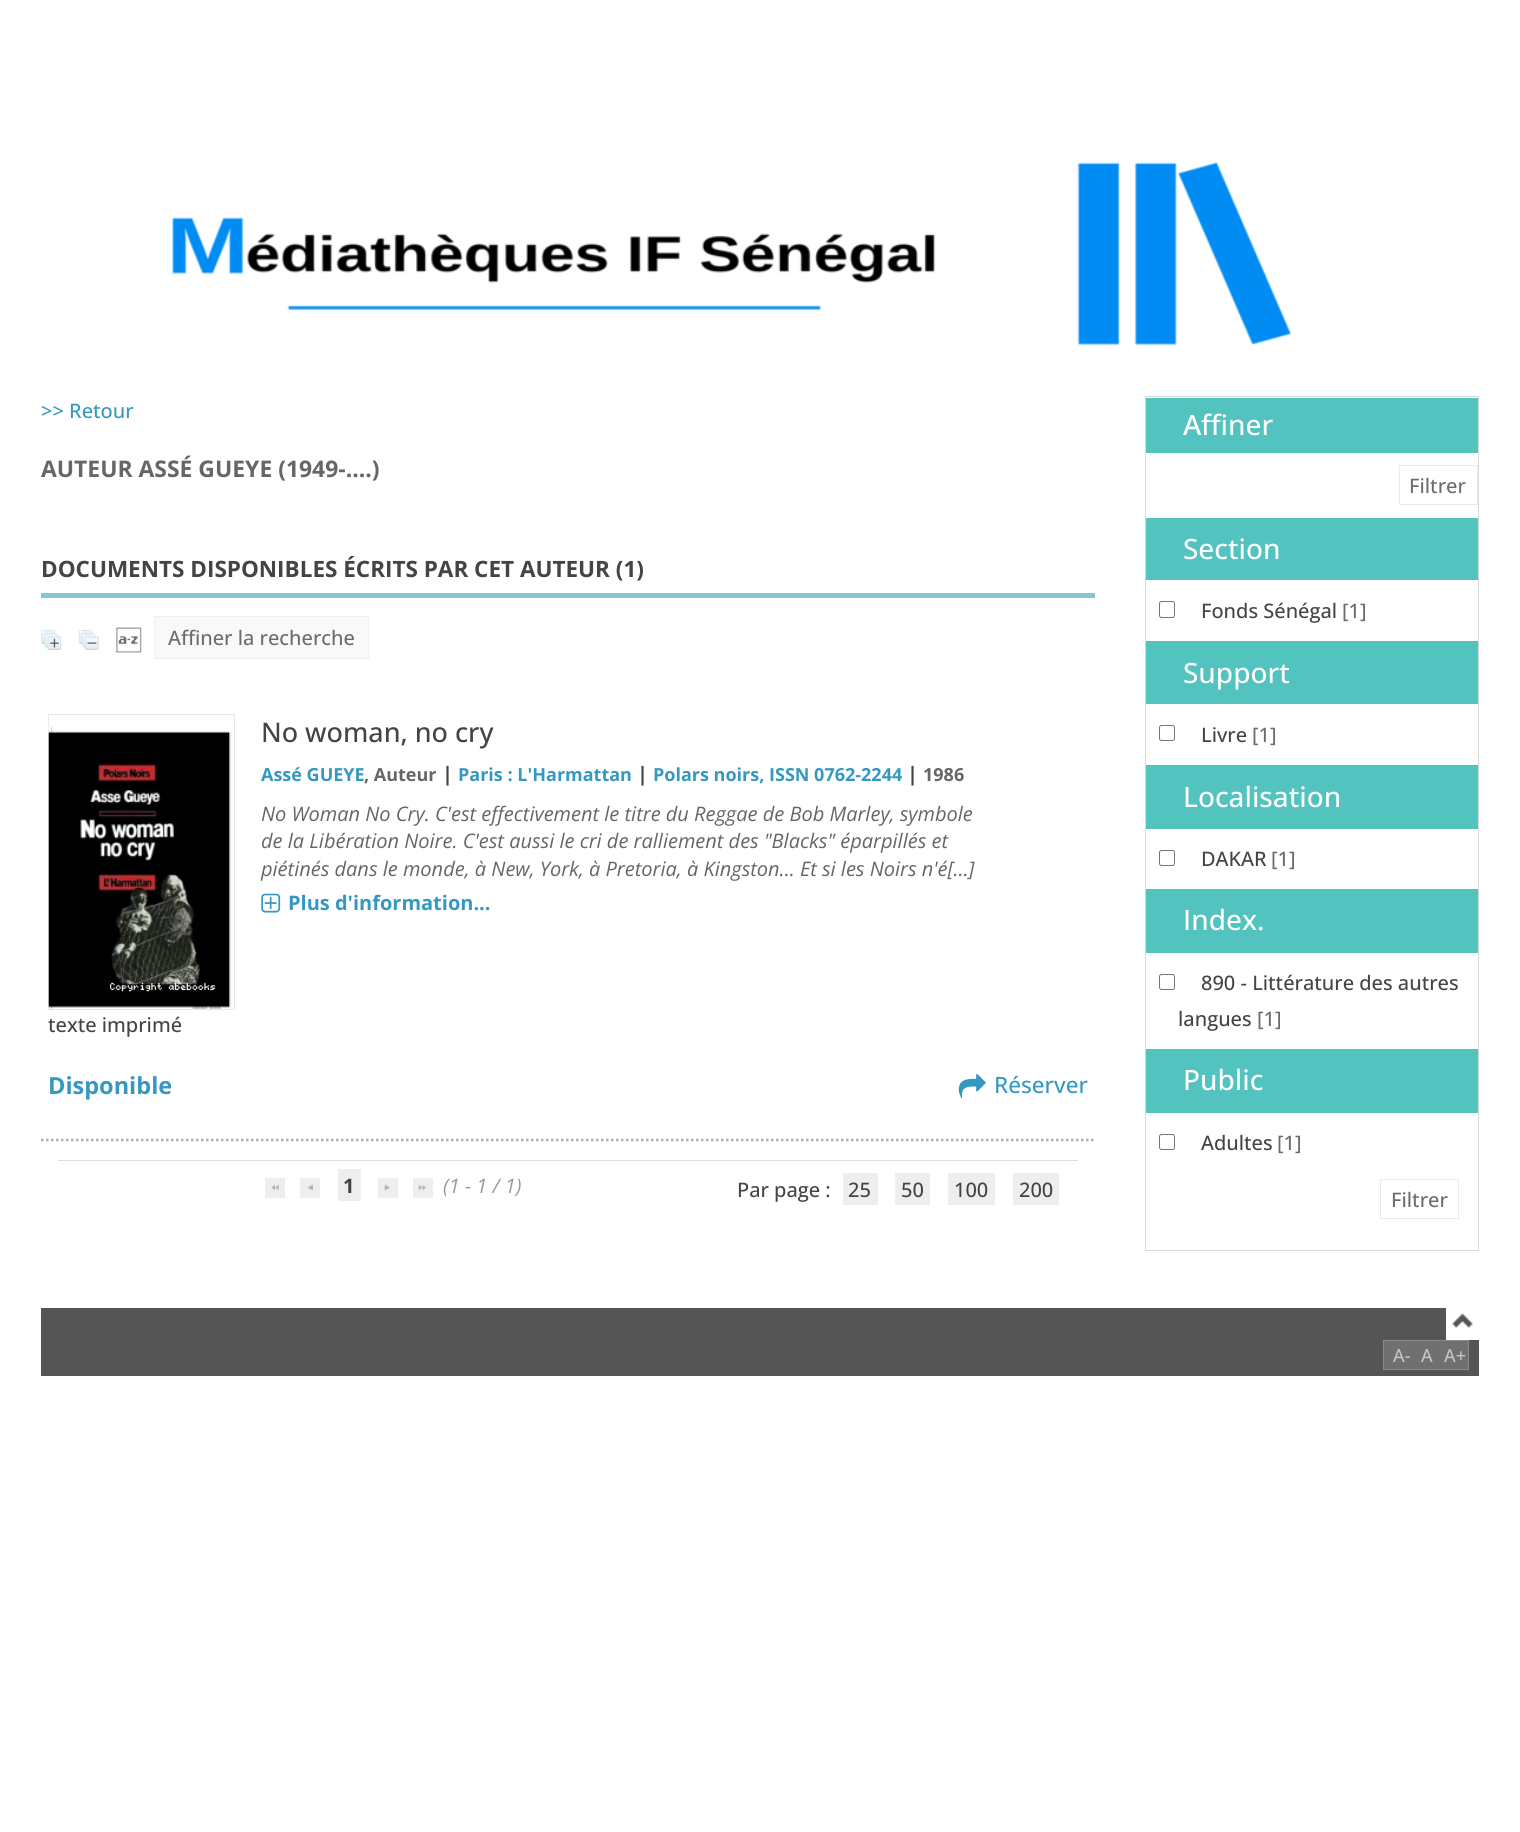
#include <cairo.h>
#include <math.h>
#include <stddef.h>

typedef struct { const char *family; double size; int italic, bold; unsigned color; } style_t;
static cairo_t *ctx;

static void ink(unsigned color) {
    cairo_set_source_rgb(ctx, (color >> 16) / 255.0, (color >> 8 & 255) / 255.0, (color & 255) / 255.0);
}

static void write(double x, double y, const char *s, const style_t *st) {
    cairo_select_font_face(ctx, st->family, st->italic ? CAIRO_FONT_SLANT_ITALIC : CAIRO_FONT_SLANT_NORMAL,
        st->bold ? CAIRO_FONT_WEIGHT_BOLD : CAIRO_FONT_WEIGHT_NORMAL);
    cairo_set_font_size(ctx, st->size);
    ink(st->color);
    cairo_move_to(ctx, x, y);
    cairo_show_text(ctx, s);
}

static void block(double x, double y, double w, double h, unsigned color) {
    ink(color);
    cairo_rectangle(ctx, x, y, w, h);
    cairo_fill(ctx);
}

static void round_path(double x, double y, double w, double h, double r) {
    cairo_new_sub_path(ctx);
    cairo_arc(ctx, x + w - r, y + h - r, r, 0, M_PI / 2);
    cairo_arc(ctx, x + r, y + h - r, r, M_PI / 2, M_PI);
    cairo_arc(ctx, x + r, y + r, r, M_PI, 1.5 * M_PI);
    cairo_arc(ctx, x + w - r, y + r, r, 1.5 * M_PI, 2 * M_PI);
    cairo_close_path(ctx);
}

static void paste(const char *path, double x, double y, double w, double h) {
    cairo_surface_t *image = cairo_image_surface_create_from_png(path);
    cairo_save(ctx);
    cairo_set_source_surface(ctx, image, x, y);
    cairo_rectangle(ctx, x, y, w, h);
    cairo_fill(ctx);
    cairo_restore(ctx);
    cairo_surface_destroy(image);
}

static const style_t s1 = {"Open Sans Medium", 20, 0, 0, 0x3598c1};
static const style_t s2 = {"Open Sans", 22.9, 0, 1, 0x666666};
static const style_t s3 = {"Open Sans", 22.5, 0, 1, 0x444444};
static const style_t s4 = {"Open Sans Medium", 20, 0, 0, 0x6c6c6c};
static const style_t s5 = {"Open Sans Medium", 27, 0, 0, 0x444444};
static const style_t s6 = {"Open Sans", 18, 0, 1, 0x3598c1};
static const style_t s7 = {"Open Sans", 18, 0, 1, 0x666666};
static const style_t s8 = {"Open Sans", 20, 0, 1, 0x444444};
static const style_t s9 = {"Open Sans", 20, 1, 0, 0x666666};
static const style_t s10 = {"Open Sans", 20, 0, 1, 0x3598c1};
static const style_t s11 = {"Open Sans Medium", 20, 0, 0, 0x444444};
static const style_t s12 = {"Open Sans", 23.5, 0, 1, 0x3598c1};
static const style_t s13 = {"Open Sans Medium", 22.5, 0, 0, 0x3598c1};
static const style_t s14 = {"Open Sans", 20, 1, 0, 0x999999};
static const style_t s15 = {"Noto Sans Medium", 28, 0, 0, 0xffffff};
static const style_t s16 = {"Open Sans Medium", 28, 0, 0, 0xffffff};
static const style_t s17 = {"Open Sans Medium", 18, 0, 0, 0xc4c4c4};

int main(void) {
    cairo_surface_t *surface = cairo_image_surface_create(CAIRO_FORMAT_RGB24, 1520, 1832);
    ctx = cairo_create(surface);
    cairo_font_options_t *options = cairo_font_options_create();
    cairo_font_options_set_hint_metrics(options, CAIRO_HINT_METRICS_OFF);
    cairo_font_options_set_hint_style(options, CAIRO_HINT_STYLE_NONE);
    cairo_set_font_options(ctx, options);
    cairo_set_miter_limit(ctx, 4);
    ink(0xffffff);
    cairo_paint(ctx);
    paste("pic1.png", 172, 162, 1120, 184);
    write(41, 418, ">> Retour", &s1);
    write(41, 477, "AUTEUR ASSÉ GUEYE (1949-....)", &s2);
    block(41, 593, 1054, 5, 0x83c7d4);
    write(41, 577, "DOCUMENTS DISPONIBLES ÉCRITS PAR CET AUTEUR (1)", &s3);
    paste("pic2.png", 41, 630, 21, 20);
    paste("pic3.png", 78, 630, 21, 20);
    paste("pic4.png", 116, 627, 26, 26);
    ink(0xf9f9f9);
    cairo_rectangle(ctx, 154.5, 616.5, 214, 42);
    cairo_fill_preserve(ctx);
    ink(0xefefef);
    cairo_set_line_width(ctx, 1);
    cairo_stroke(ctx);
    write(168, 645, "Affiner la recherche", &s4);
    cairo_new_path(ctx);
    cairo_move_to(ctx, 41, 1140);
    cairo_line_to(ctx, 1095, 1140);
    ink(0xb1b1b1);
    cairo_set_line_width(ctx, 2.5);
    cairo_set_dash(ctx, (double[]){2.5, 2.5}, 2, 0);
    cairo_stroke(ctx);
    write(261, 742, "No woman, no cry", &s5);
    write(261, 781, "Assé GUEYE", &s6);
    write(364, 781, ", Auteur", &s7);
    write(442, 781, "|", &s8);
    write(458, 781, "Paris : L'Harmattan", &s6);
    write(637, 781, "|", &s8);
    write(653, 781, "Polars noirs, ISSN 0762-2244", &s6);
    write(907, 781, "|", &s8);
    write(923, 781, "1986", &s7);
    write(261, 821, "No Woman No Cry. C'est effectivement le titre du Reggae de Bob Marley, symbole", &s9);
    write(261, 848, "de la Libération Noire. C'est aussi le cri de ralliement des \"Blacks\" éparpillés et", &s9);
    write(261, 876, "piétinés dans le monde, à New, York, à Pretoria, à Kingston... Et si les Noirs n'é[...]", &s9);
    paste("pic5.png", 261, 893, 20, 20);
    write(288, 910, "Plus d'information...", &s10);
    cairo_rectangle(ctx, 48.5, 714.5, 186, 295);
    ink(0xe6e6e6);
    cairo_set_line_width(ctx, 1);
    cairo_set_dash(ctx, NULL, 0, 0);
    cairo_stroke(ctx);
    paste("pic6.png", 48, 715, 184, 294);
    write(48, 1032, "texte imprimé", &s11);
    write(48, 1094, "Disponible", &s12);
    paste("pic7.png", 958, 1074, 28, 25);
    write(994, 1093, "Réserver", &s13);
    block(58, 1160, 1020, 1, 0xdddddd);
    block(265, 1178, 20, 20, 0xeeeeee);
    paste("pic8.png", 271, 1184, 8, 7);
    block(300, 1178, 20, 20, 0xeeeeee);
    paste("pic9.png", 307, 1184, 6, 7);
    block(338, 1169, 23, 32, 0xeeeeee);
    write(343, 1193, "1", &s8);
    block(378, 1178, 20, 20, 0xeeeeee);
    paste("pic10.png", 384, 1184, 6, 7);
    block(413, 1178, 20, 20, 0xeeeeee);
    paste("pic11.png", 418, 1184, 8, 7);
    write(443, 1193, "(1 - 1 / 1)", &s14);
    write(737, 1197, "Par page :", &s11);
    block(843, 1173, 35, 32, 0xeeeeee);
    write(848, 1197, "25", &s11);
    block(895, 1173, 35, 32, 0xeeeeee);
    write(901, 1197, "50", &s11);
    block(948, 1173, 47, 32, 0xeeeeee);
    write(954, 1197, "100", &s11);
    block(1013, 1173, 46, 32, 0xeeeeee);
    write(1019, 1197, "200", &s11);
    cairo_rectangle(ctx, 1145.5, 396.5, 333, 854);
    ink(0xd9d9d9);
    cairo_stroke(ctx);
    block(1146, 398, 332, 55, 0x53c3bf);
    write(1183, 435, "A", &s15);
    write(1201, 435, "ffiner", &s16);
    cairo_rectangle(ctx, 1399.5, 465.5, 78, 39);
    ink(0xeaeaea);
    cairo_stroke(ctx);
    write(1409, 493, "Filtrer", &s4);
    block(1146, 518, 332, 62, 0x53c3bf);
    write(1183, 559, "Section", &s16);
    round_path(1159.5, 601.5, 15, 16, 2);
    ink(0x767676);
    cairo_stroke(ctx);
    write(1201, 618, "Fonds Sénégal", &s11);
    write(1342, 618, "[1]", &s4);
    block(1146, 641, 332, 63, 0x53c3bf);
    write(1183, 683, "Support", &s16);
    round_path(1159.5, 725.5, 15, 15, 2);
    ink(0x767676);
    cairo_stroke(ctx);
    write(1201, 742, "Livre", &s11);
    write(1252, 742, "[1]", &s4);
    block(1146, 765, 332, 64, 0x53c3bf);
    write(1183, 807, "Localisation", &s16);
    round_path(1159.5, 850.5, 15, 15, 2);
    ink(0x767676);
    cairo_stroke(ctx);
    write(1201, 866, "DAKAR", &s11);
    write(1271, 866, "[1]", &s4);
    block(1146, 889, 332, 64, 0x53c3bf);
    write(1183, 930, "Index.", &s16);
    round_path(1159.5, 974.5, 15, 15, 2);
    ink(0x767676);
    cairo_stroke(ctx);
    write(1201, 990, "890 - Littérature des autres", &s11);
    write(1178, 1026, "langues", &s11);
    write(1257, 1026, "[1]", &s4);
    block(1146, 1049, 332, 64, 0x53c3bf);
    write(1183, 1090, "Public", &s16);
    round_path(1159.5, 1134.5, 15, 15, 2);
    ink(0x767676);
    cairo_stroke(ctx);
    write(1201, 1150, "Adultes", &s11);
    write(1277, 1150, "[1]", &s4);
    cairo_rectangle(ctx, 1380.5, 1179.5, 78, 39);
    ink(0xeaeaea);
    cairo_stroke(ctx);
    write(1391, 1207, "Filtrer", &s4);
    block(41, 1308, 1438, 68, 0x555555);
    block(1446, 1308, 33, 32, 0xffffff);
    paste("pic12.png", 1452, 1313, 21, 15);
    ink(0x707070);
    cairo_rectangle(ctx, 1383.5, 1340.5, 85, 29);
    cairo_fill_preserve(ctx);
    ink(0x8a8a8a);
    cairo_stroke(ctx);
    write(1393, 1362, "A-", &s17);
    write(1421, 1362, "A", &s17);
    write(1444, 1362, "A+", &s17);
    cairo_surface_write_to_png(surface, "screenshot.png");
    cairo_font_options_destroy(options);
    cairo_destroy(ctx);
    cairo_surface_destroy(surface);
    return 0;
}
